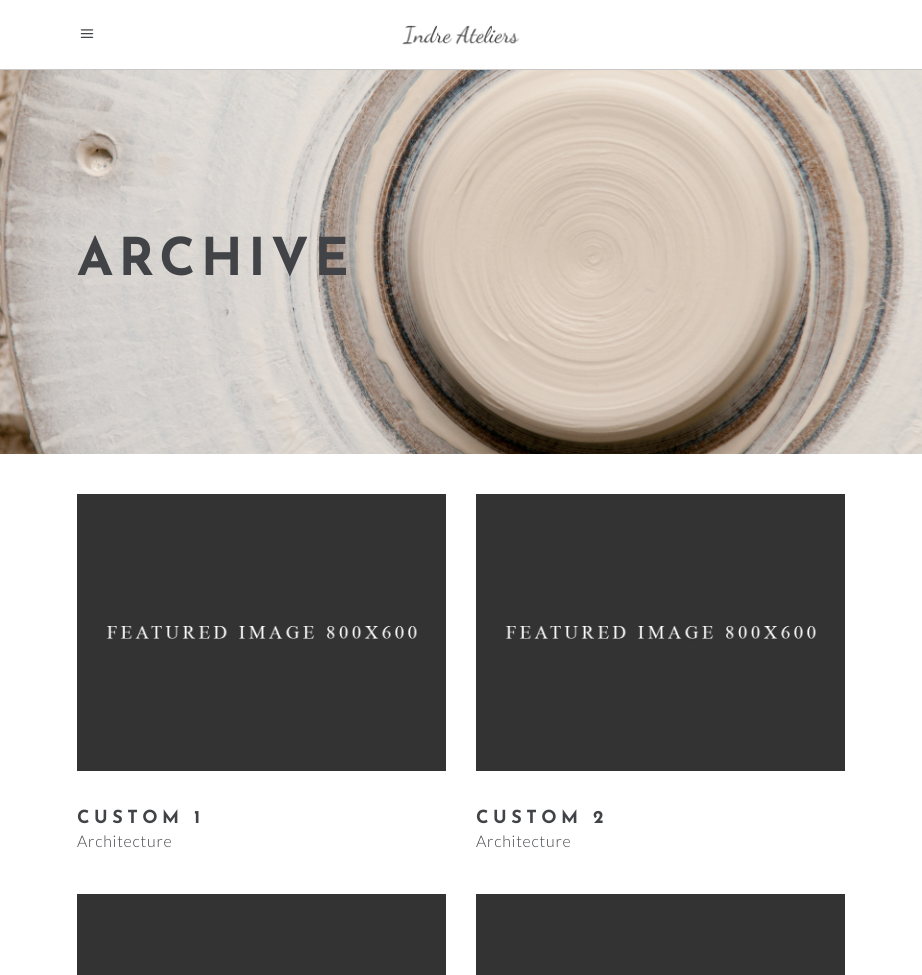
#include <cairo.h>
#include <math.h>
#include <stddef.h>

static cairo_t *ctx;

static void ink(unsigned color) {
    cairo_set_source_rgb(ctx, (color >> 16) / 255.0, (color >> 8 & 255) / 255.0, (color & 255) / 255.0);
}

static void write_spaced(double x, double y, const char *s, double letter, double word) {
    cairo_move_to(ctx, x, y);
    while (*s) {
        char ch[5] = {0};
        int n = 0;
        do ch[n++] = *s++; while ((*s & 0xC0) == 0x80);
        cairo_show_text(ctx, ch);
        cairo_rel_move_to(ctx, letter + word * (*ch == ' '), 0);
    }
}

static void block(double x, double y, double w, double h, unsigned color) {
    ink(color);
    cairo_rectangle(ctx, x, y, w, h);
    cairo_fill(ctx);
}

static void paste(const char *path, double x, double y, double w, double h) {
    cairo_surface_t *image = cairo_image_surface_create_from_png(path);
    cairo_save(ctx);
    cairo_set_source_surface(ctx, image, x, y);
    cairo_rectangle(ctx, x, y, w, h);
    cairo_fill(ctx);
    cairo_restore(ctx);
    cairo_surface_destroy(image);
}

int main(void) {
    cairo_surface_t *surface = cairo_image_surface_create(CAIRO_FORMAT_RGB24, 922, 975);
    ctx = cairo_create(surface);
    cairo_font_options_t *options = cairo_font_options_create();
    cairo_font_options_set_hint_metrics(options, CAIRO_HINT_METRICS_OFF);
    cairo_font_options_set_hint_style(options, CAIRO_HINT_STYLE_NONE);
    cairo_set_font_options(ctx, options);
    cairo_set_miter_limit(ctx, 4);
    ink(0xffffff);
    cairo_paint(ctx);
    block(0, 69, 922, 1, 0xc7c7c7);
    paste("pic1.png", 80, 29, 14, 9);
    paste("pic2.png", 402, 25, 118, 20);
    paste("pic3.png", 0, 70, 922, 384);
    cairo_select_font_face(ctx, "Josefin Sans", CAIRO_FONT_SLANT_NORMAL, CAIRO_FONT_WEIGHT_BOLD);
    cairo_set_font_size(ctx, 52);
    ink(0x414347);
    write_spaced(77, 275, "ARCHIVE", 5.25, 0);
    paste("pic4.png", 77, 494, 369, 277);
    cairo_set_font_size(ctx, 18);
    write_spaced(77, 823, "CUSTOM 1", 4.5, 0);
    cairo_select_font_face(ctx, "Lato Light", CAIRO_FONT_SLANT_NORMAL, CAIRO_FONT_WEIGHT_NORMAL);
    cairo_set_font_size(ctx, 16);
    write_spaced(77, 847, "Architecture", 0.75, 0);
    paste("pic5.png", 476, 494, 369, 277);
    cairo_select_font_face(ctx, "Josefin Sans", CAIRO_FONT_SLANT_NORMAL, CAIRO_FONT_WEIGHT_BOLD);
    cairo_set_font_size(ctx, 18);
    write_spaced(476, 823, "CUSTOM 2", 4.5, 0);
    cairo_select_font_face(ctx, "Lato Light", CAIRO_FONT_SLANT_NORMAL, CAIRO_FONT_WEIGHT_NORMAL);
    cairo_set_font_size(ctx, 16);
    write_spaced(476, 847, "Architecture", 0.75, 0);
    block(77, 894, 369, 81, 0x333333);
    block(476, 894, 369, 81, 0x333333);
    cairo_surface_write_to_png(surface, "screenshot.png");
    cairo_font_options_destroy(options);
    cairo_destroy(ctx);
    cairo_surface_destroy(surface);
    return 0;
}
